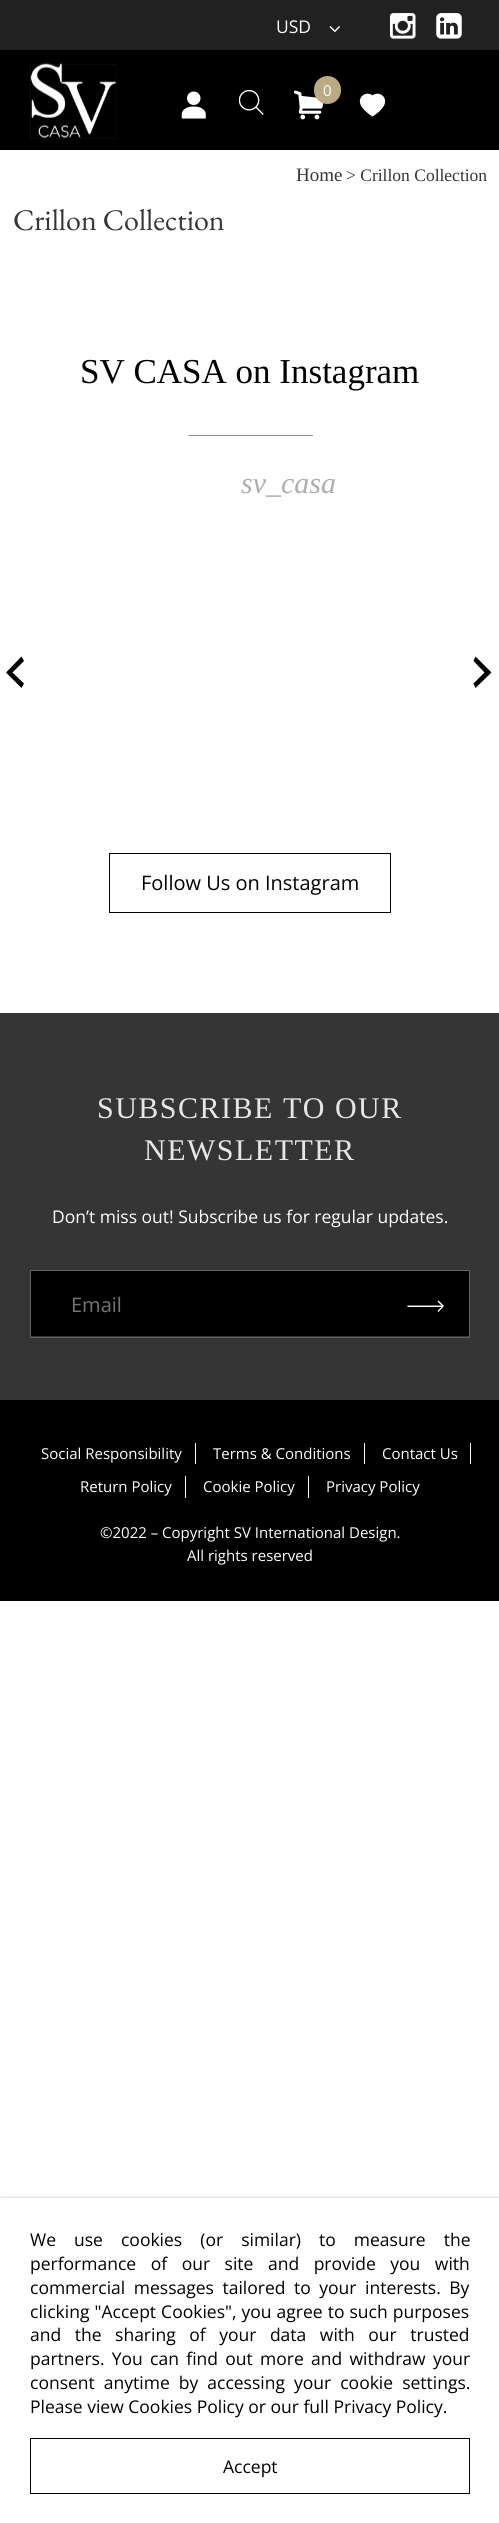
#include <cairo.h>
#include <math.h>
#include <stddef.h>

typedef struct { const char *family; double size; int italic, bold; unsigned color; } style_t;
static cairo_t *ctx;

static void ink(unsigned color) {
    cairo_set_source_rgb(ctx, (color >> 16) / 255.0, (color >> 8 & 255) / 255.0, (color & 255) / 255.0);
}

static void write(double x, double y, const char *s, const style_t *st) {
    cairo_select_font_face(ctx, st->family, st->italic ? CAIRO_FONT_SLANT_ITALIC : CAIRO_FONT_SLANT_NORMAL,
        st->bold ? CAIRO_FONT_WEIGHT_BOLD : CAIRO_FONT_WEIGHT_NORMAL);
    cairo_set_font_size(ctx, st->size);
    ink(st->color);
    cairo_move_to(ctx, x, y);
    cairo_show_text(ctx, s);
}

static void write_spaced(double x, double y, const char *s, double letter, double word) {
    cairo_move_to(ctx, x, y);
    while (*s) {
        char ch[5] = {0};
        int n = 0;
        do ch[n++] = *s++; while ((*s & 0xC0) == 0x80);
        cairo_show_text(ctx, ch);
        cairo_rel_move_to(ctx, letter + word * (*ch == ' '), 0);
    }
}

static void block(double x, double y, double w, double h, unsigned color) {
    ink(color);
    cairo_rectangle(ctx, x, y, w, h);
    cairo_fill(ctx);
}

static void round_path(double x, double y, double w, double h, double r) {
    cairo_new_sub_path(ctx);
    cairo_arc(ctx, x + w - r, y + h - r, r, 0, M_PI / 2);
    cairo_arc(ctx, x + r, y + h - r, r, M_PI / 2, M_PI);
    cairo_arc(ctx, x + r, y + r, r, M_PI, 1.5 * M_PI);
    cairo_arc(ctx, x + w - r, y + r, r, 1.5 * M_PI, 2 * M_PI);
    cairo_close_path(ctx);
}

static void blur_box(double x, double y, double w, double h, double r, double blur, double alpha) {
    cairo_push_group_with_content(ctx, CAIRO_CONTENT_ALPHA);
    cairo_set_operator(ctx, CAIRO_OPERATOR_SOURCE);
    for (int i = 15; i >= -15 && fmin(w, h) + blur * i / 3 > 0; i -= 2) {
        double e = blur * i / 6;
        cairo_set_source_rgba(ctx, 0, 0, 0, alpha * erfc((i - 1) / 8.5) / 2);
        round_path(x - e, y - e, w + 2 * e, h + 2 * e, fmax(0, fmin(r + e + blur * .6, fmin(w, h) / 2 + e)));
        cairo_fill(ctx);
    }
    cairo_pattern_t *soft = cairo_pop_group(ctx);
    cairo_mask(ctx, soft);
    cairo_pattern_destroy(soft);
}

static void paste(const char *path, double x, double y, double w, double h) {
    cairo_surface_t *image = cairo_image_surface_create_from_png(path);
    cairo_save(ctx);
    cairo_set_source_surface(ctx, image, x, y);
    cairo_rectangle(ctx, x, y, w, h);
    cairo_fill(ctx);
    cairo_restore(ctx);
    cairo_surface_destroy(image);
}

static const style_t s1 = {"Open Sans", 17.5, 0, 0, 0xffffff};
static const style_t s2 = {"Open Sans", 15, 0, 0, 0xffffff};
static const style_t s3 = {"Liberation Serif", 19, 0, 0, 0x353535};
static const style_t s4 = {"Liberation Serif", 17.5, 0, 0, 0x353535};
static const style_t s5 = {"EB Garamond", 30, 0, 0, 0x353535};
static const style_t s6 = {"Liberation Serif", 35, 0, 0, 0x000000};
static const style_t s7 = {"Liberation Serif", 30, 1, 0, 0xaeaeae};
static const style_t s8 = {"Open Sans", 20, 0, 0, 0x000000};
static const style_t s9 = {"Open Sans", 20, 0, 0, 0x757575};
static const style_t s10 = {"Open Sans", 17.5, 0, 0, 0x000000};

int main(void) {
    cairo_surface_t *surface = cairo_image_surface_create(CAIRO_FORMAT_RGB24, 499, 2523);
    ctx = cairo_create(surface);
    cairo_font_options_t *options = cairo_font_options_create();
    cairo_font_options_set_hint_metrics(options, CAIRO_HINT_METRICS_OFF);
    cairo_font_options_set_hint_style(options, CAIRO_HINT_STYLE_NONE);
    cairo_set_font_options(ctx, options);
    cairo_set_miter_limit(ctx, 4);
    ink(0xffffff);
    cairo_paint(ctx);
    block(0, 0, 499, 50, 0x212121);
    write(276, 33, "USD", &s1);
    paste("pic1.png", 329, 26, 11, 7);
    paste("pic2.png", 390, 13, 26, 26);
    paste("pic3.png", 436, 13, 26, 26);
    block(0, 50, 499, 100, 0x000000);
    paste("pic4.png", 30, 63, 87, 76);
    paste("pic5.png", 181, 91, 25, 28);
    paste("pic6.png", 239, 90, 25, 25);
    paste("pic7.png", 294, 90, 30, 30);
    ink(0xbcaa85);
    round_path(314, 76, 27, 28, 13.5);
    cairo_fill(ctx);
    write(323, 96, "0", &s2);
    paste("pic8.png", 359, 93, 27, 24);
    write(296, 181, "Home", &s3);
    write(346, 181, "> Crillon Collection", &s4);
    write(13, 230, "Crillon Collection", &s5);
    write(80, 383, "SV CASA on Instagram", &s6);
    block(188, 435, 125, 1, 0x929292);
    write(241, 493, "sv_casa", &s7);
    ink(0x000000);
    cairo_new_path(ctx);
    cairo_move_to(ctx, 24, 661);
    cairo_line_to(ctx, 12.5, 672.5);
    cairo_line_to(ctx, 24, 683.5);
    cairo_line_to(ctx, 21.5, 688);
    cairo_line_to(ctx, 6, 672.5);
    cairo_line_to(ctx, 21.5, 656.5);
    cairo_close_path(ctx);
    cairo_fill(ctx);
    cairo_new_path(ctx);
    cairo_move_to(ctx, 473.5, 683.5);
    cairo_line_to(ctx, 484.5, 672.5);
    cairo_line_to(ctx, 473.5, 661);
    cairo_line_to(ctx, 475.5, 656.5);
    cairo_line_to(ctx, 491.5, 672.5);
    cairo_line_to(ctx, 475.5, 688);
    cairo_close_path(ctx);
    cairo_fill(ctx);
    cairo_rectangle(ctx, 109.5, 853.5, 281, 59);
    cairo_set_line_width(ctx, 1);
    cairo_stroke(ctx);
    write(141, 890, "Follow Us on Instagram", &s8);
    block(0, 1013, 499, 387, 0x353535);
    cairo_select_font_face(ctx, "Liberation Serif", CAIRO_FONT_SLANT_NORMAL, CAIRO_FONT_WEIGHT_NORMAL);
    cairo_set_font_size(ctx, 30);
    ink(0xe7e7e7);
    write_spaced(97, 1118, "SUBSCRIBE TO OUR", 1.5, 0);
    write_spaced(144, 1160, "NEWSLETTER", 1.5, 0);
    write(52, 1223, "Don’t miss out! Subscribe us for regular updates.", &s1);
    cairo_rectangle(ctx, 30.5, 1270.5, 439, 67);
    ink(0x646464);
    cairo_stroke(ctx);
    block(31, 1271, 438, 65, 0x000000);
    write(71, 1312, "Email", &s9);
    ink(0xffffff);
    cairo_new_path(ctx);
    cairo_move_to(ctx, 438.5, 1300.5);
    cairo_line_to(ctx, 437.5, 1301.5);
    cairo_line_to(ctx, 441.5, 1305.5);
    cairo_line_to(ctx, 407.5, 1305.5);
    cairo_line_to(ctx, 407.5, 1307);
    cairo_line_to(ctx, 441.5, 1307);
    cairo_line_to(ctx, 437.5, 1311);
    cairo_line_to(ctx, 438.5, 1312);
    cairo_line_to(ctx, 444, 1306);
    cairo_close_path(ctx);
    cairo_fill(ctx);
    block(0, 1400, 499, 201, 0x000000);
    write(41, 1459, "Social Responsibility", &s2);
    block(195, 1443, 1, 21, 0xffffff);
    write(213, 1459, "Terms & Conditions", &s2);
    block(364, 1443, 1, 21, 0xffffff);
    write(382, 1459, "Contact Us", &s2);
    block(470, 1443, 1, 21, 0xffffff);
    write(80, 1492, "Return Policy", &s2);
    block(185, 1476, 1, 22, 0xffffff);
    write(203, 1492, "Cookie Policy", &s2);
    block(308, 1476, 1, 22, 0xffffff);
    write(326, 1492, "Privacy Policy", &s2);
    write(100, 1538, "©2022 – Copyright SV International Design.", &s2);
    write(187, 1561, "All rights reserved", &s2);
    ink(0xcccccc);
    blur_box(0, 2198, 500, 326, 0, 2, 1);
    block(0, 2198, 499, 325, 0xffffff);
    cairo_set_font_size(ctx, 17.5);
    ink(0x000000);
    write_spaced(30, 2246, "We use cookies (or similar) to measure the", 0, 13.5);
    write_spaced(30, 2270, "performance of our site and provide you with", 0, 10);
    write_spaced(30, 2294, "commercial messages tailored to your interests. By", 0, 4);
    write_spaced(30, 2318, "clicking \"Accept Cookies\", you agree to such purposes", 0, 0.5);
    write_spaced(30, 2341, "and the sharing of your data with our trusted", 0, 9);
    write_spaced(30, 2365, "partners. You can find out more and withdraw your", 0, 2.75);
    write_spaced(30, 2389, "consent anytime by accessing your cookie settings.", 0, 4.5);
    write(30, 2413, "Please view Cookies Policy or our full Privacy Policy.", &s10);
    cairo_rectangle(ctx, 30.5, 2438.5, 439, 55);
    cairo_stroke(ctx);
    write(223, 2473, "Accept", &s10);
    cairo_surface_write_to_png(surface, "screenshot.png");
    cairo_font_options_destroy(options);
    cairo_destroy(ctx);
    cairo_surface_destroy(surface);
    return 0;
}
